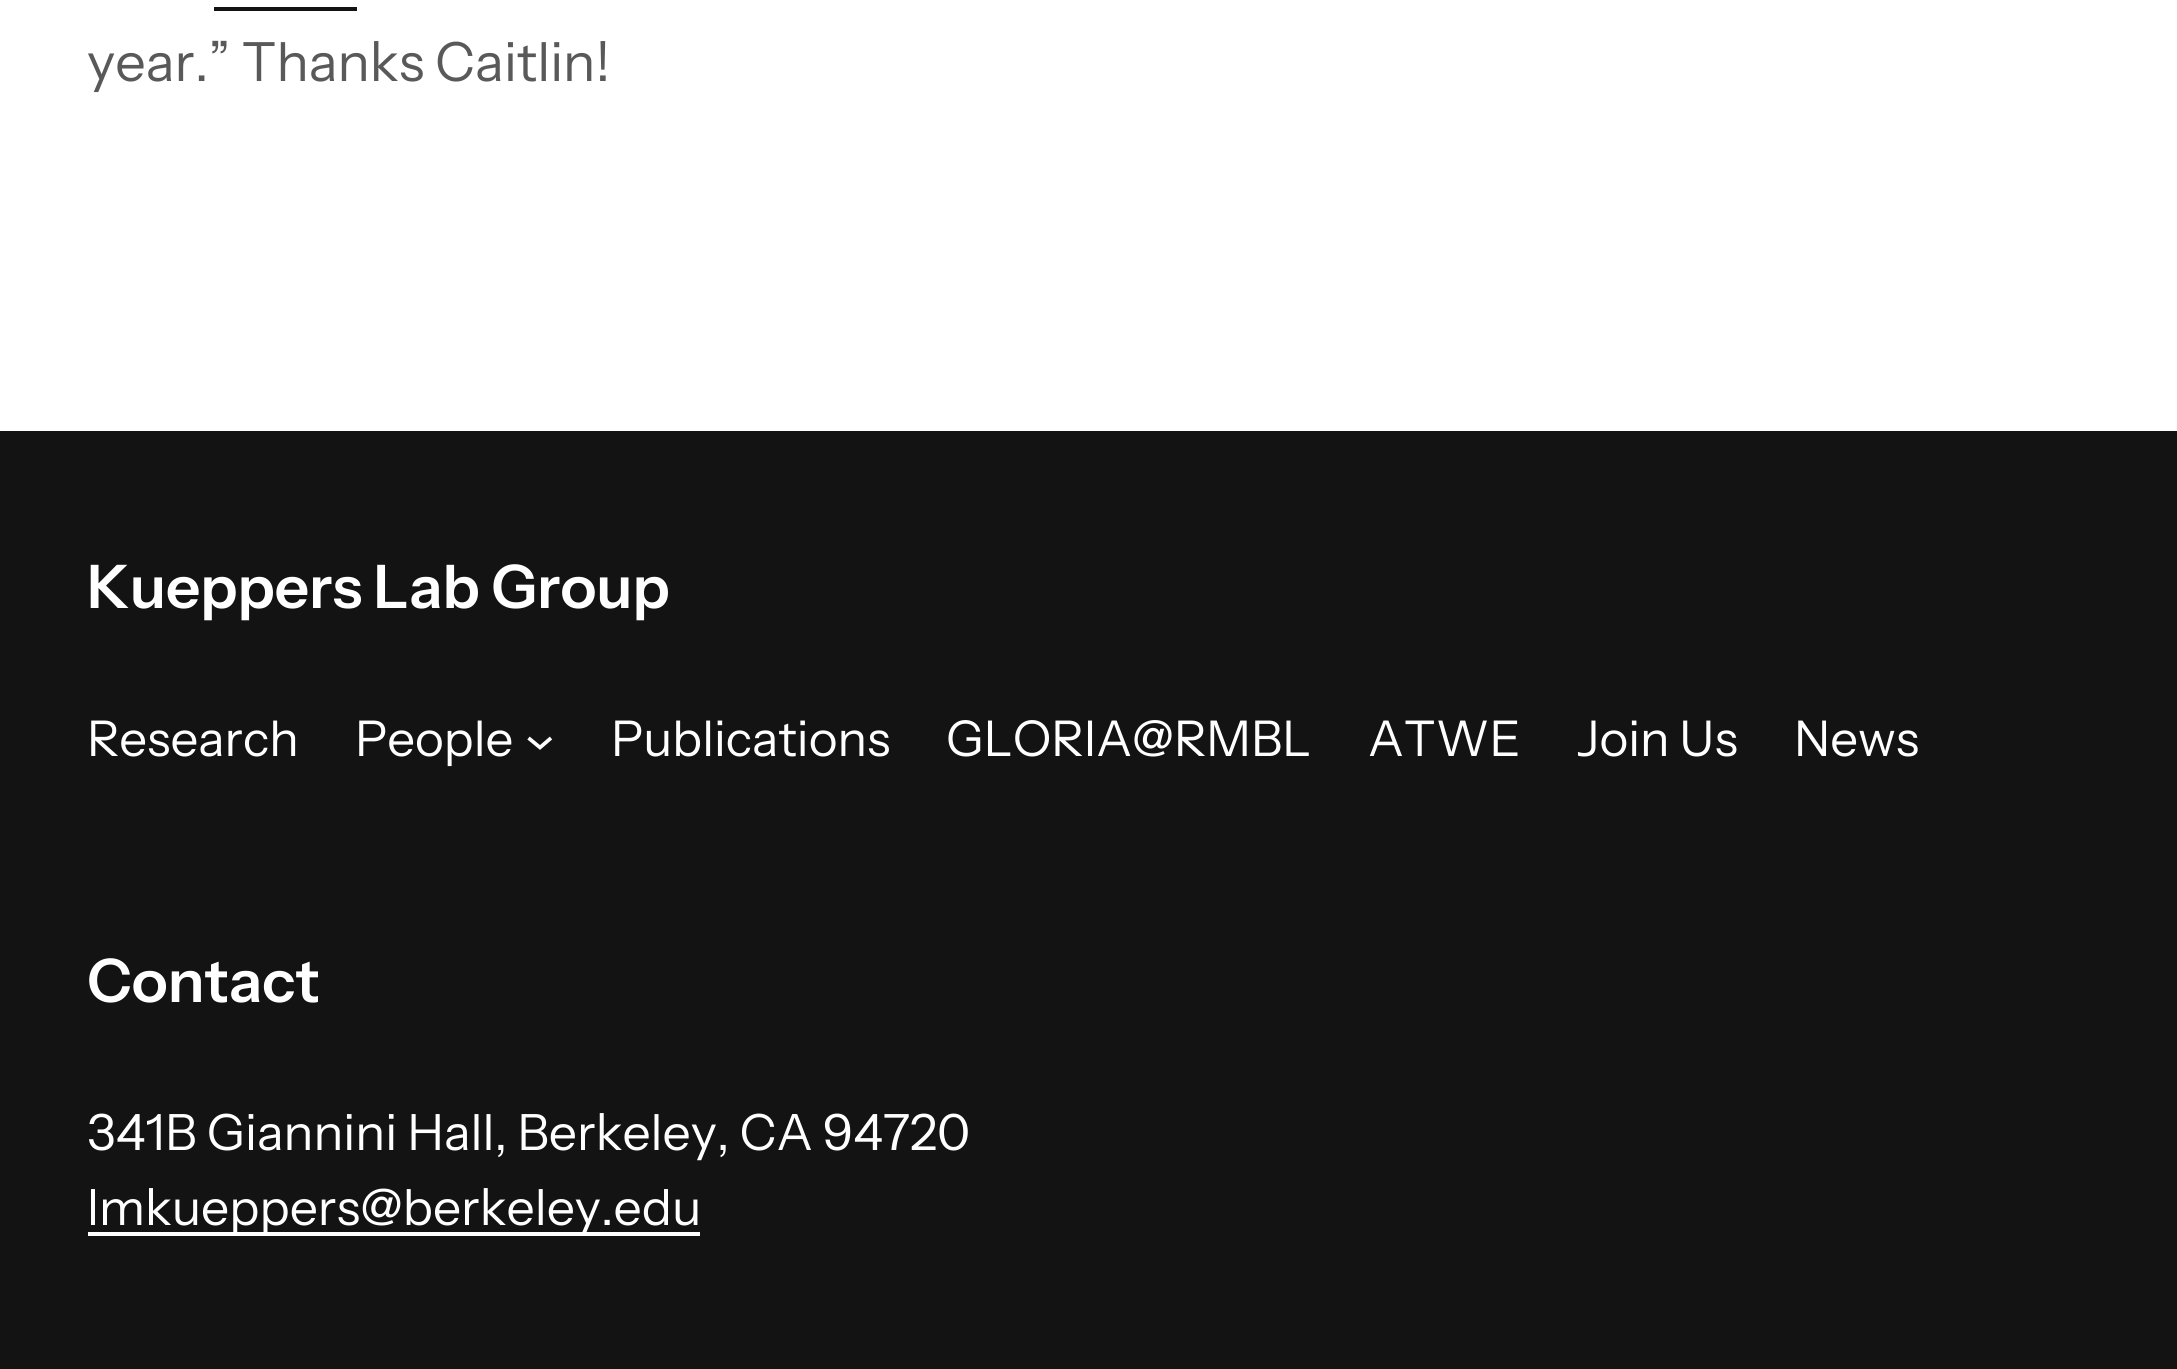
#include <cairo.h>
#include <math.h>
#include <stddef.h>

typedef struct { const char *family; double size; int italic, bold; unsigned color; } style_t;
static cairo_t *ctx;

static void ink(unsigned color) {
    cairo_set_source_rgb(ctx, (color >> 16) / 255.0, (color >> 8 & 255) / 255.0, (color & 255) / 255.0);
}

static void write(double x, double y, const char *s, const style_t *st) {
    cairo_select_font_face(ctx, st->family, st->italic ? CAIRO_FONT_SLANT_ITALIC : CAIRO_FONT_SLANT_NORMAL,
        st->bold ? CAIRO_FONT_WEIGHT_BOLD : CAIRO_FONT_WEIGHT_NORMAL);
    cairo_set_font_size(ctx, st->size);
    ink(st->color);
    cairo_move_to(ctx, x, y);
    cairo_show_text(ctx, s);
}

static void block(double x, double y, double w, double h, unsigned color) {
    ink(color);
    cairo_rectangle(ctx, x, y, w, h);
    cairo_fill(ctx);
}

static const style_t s1 = {"Instrument Sans", 54, 0, 0, 0x595959};
static const style_t s2 = {"Instrument Sans SemiBold", 60, 0, 0, 0xffffff};
static const style_t s3 = {"Instrument Sans", 49.25, 0, 0, 0xffffff};
static const style_t s4 = {"Instrument Sans", 49.9, 0, 0, 0xffffff};

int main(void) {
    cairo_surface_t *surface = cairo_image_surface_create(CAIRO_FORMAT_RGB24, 2177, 1369);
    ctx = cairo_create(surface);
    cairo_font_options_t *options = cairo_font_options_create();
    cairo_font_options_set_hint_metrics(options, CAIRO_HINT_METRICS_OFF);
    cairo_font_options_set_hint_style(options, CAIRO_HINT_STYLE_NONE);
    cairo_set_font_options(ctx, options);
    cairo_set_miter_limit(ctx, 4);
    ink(0xffffff);
    cairo_paint(ctx);
    block(214, 7, 143, 4, 0x131313);
    write(87, 81, "year.” Thanks Caitlin!", &s1);
    block(0, 431, 2177, 938, 0x131313);
    write(87, 608, "Kueppers Lab Group", &s2);
    write(87, 756, "Research", &s3);
    write(355, 756, "People", &s3);
    cairo_new_path(ctx);
    cairo_move_to(ctx, 528.5, 738);
    cairo_line_to(ctx, 540, 747.5);
    cairo_line_to(ctx, 551, 738);
    cairo_set_line_width(ctx, 3.7);
    cairo_stroke(ctx);
    write(611, 756, "Publications", &s3);
    write(946, 756, "GLORIA@RMBL", &s3);
    write(1368, 756, "ATWE", &s3);
    write(1577, 756, "Join Us", &s3);
    write(1794, 756, "News", &s3);
    write(87, 1002, "Contact", &s2);
    write(87, 1150, "341B Giannini Hall, Berkeley, CA 94720", &s4);
    block(88, 1232, 612, 4, 0xffffff);
    write(87, 1225, "lmkueppers@berkeley.edu", &s4);
    cairo_surface_write_to_png(surface, "screenshot.png");
    cairo_font_options_destroy(options);
    cairo_destroy(ctx);
    cairo_surface_destroy(surface);
    return 0;
}
